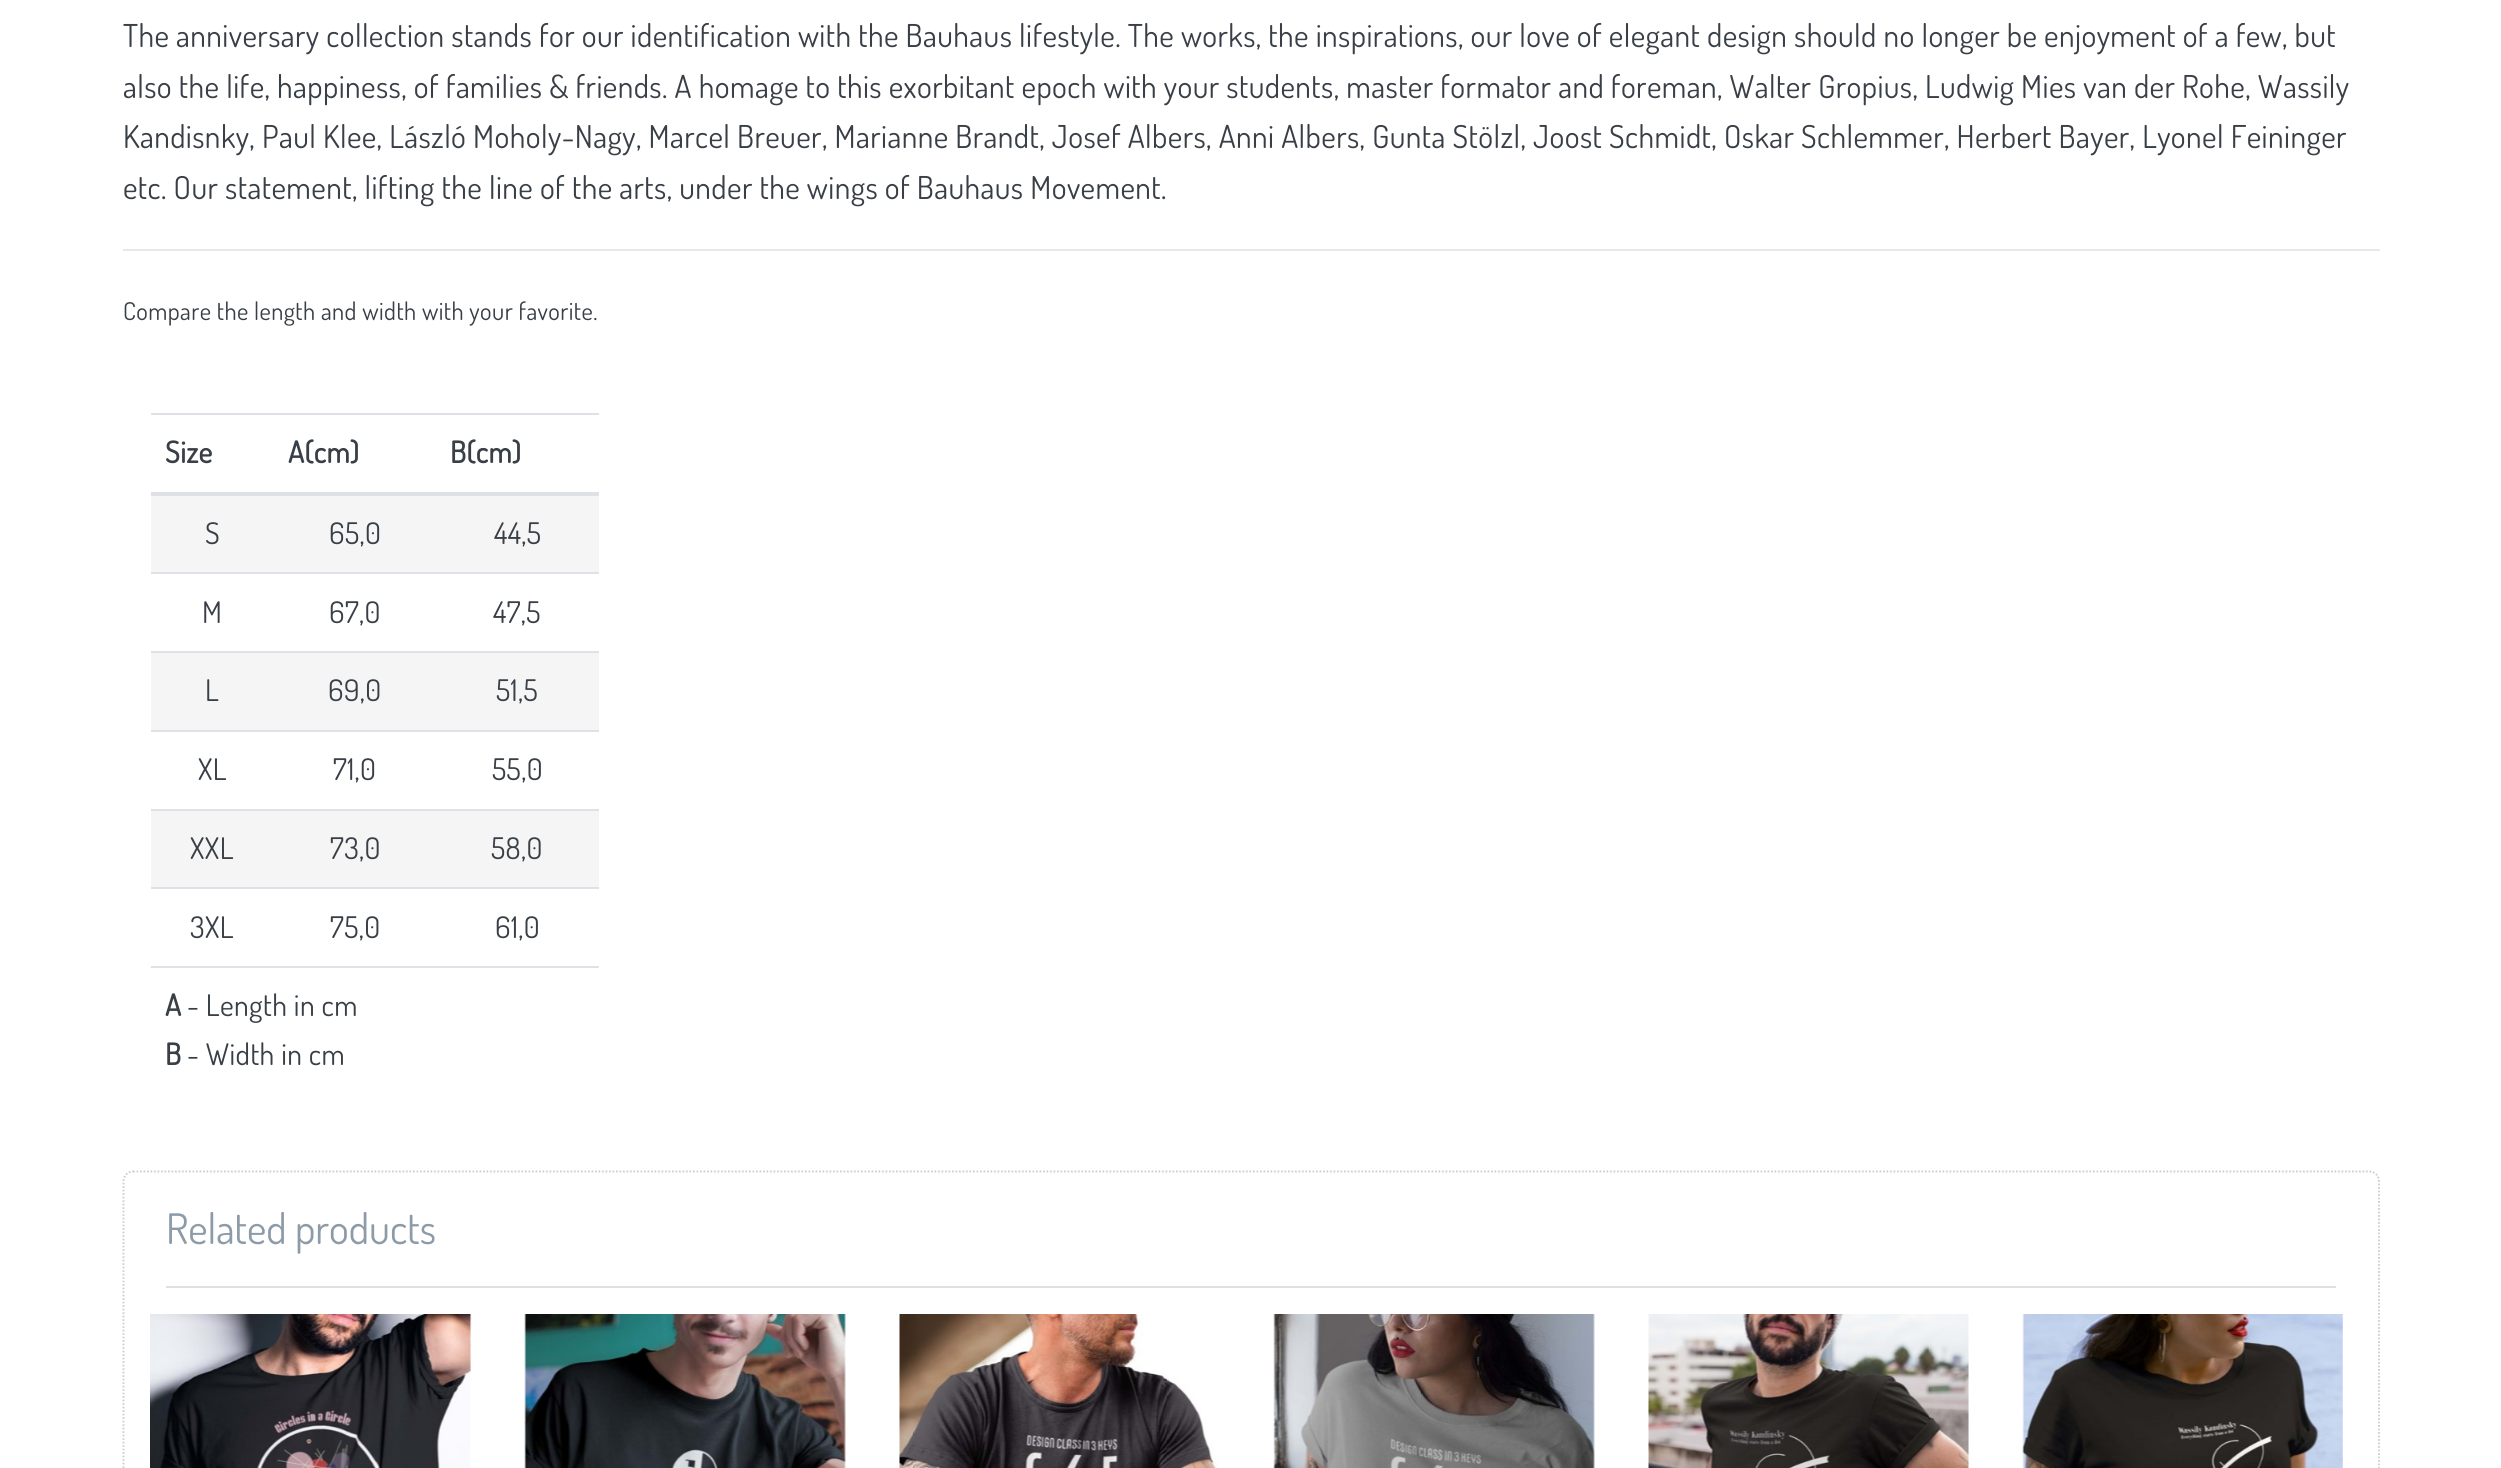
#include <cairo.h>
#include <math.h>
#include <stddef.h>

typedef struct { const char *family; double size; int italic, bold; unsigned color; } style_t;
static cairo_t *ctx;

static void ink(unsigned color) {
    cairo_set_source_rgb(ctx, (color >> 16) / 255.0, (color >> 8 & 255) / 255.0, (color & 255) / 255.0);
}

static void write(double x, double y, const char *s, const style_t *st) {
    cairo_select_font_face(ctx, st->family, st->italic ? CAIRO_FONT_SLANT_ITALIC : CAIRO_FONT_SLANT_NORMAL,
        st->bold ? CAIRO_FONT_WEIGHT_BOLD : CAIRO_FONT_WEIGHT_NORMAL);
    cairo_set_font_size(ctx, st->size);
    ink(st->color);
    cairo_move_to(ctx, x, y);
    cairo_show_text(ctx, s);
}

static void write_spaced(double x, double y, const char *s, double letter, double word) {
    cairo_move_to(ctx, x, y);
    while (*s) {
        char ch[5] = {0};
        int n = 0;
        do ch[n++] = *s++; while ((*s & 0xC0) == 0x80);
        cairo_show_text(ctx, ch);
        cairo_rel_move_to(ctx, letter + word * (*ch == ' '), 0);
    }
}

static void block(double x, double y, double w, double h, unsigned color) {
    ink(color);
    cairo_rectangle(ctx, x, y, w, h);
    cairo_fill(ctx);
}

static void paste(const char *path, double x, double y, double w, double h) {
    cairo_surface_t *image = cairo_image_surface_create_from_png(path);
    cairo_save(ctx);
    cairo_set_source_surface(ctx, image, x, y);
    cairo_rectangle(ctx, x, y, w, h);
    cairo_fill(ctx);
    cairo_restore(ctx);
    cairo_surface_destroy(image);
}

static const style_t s1 = {"Dosis", 42, 0, 0, 0x8d9ba9};

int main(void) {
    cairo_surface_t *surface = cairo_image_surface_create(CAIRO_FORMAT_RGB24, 2501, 1468);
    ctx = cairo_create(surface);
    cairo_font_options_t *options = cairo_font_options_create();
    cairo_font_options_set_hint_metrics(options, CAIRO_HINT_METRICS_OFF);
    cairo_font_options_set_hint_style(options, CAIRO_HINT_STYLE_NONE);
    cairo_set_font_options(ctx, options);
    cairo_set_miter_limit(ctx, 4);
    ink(0xffffff);
    cairo_paint(ctx);
    cairo_select_font_face(ctx, "Dosis", CAIRO_FONT_SLANT_NORMAL, CAIRO_FONT_WEIGHT_NORMAL);
    cairo_set_font_size(ctx, 31.5);
    ink(0x393f46);
    write_spaced(123, 47, "The anniversary collection stands for our identification with the Bauhaus lifestyle. The works, the inspirations, our love of elegant design should no longer be enjoyment of a few, but", 0.44, 0);
    write_spaced(123, 98, "also the life, happiness, of families & friends. A homage to this exorbitant epoch with your students, master formator and foreman, Walter Gropius, Ludwig Mies van der Rohe, Wassily", 0.44, 0);
    write_spaced(123, 148, "Kandisnky, Paul Klee, László Moholy-Nagy, Marcel Breuer, Marianne Brandt, Josef Albers, Anni Albers, Gunta Stölzl, Joost Schmidt, Oskar Schlemmer, Herbert Bayer, Lyonel Feininger", 0.44, 0);
    write_spaced(123, 199, "etc. Our statement, lifting the line of the arts, under the wings of Bauhaus Movement.", 0.44, 0);
    block(123, 249, 2257, 2, 0xe7e8e9);
    cairo_set_font_size(ctx, 24.5);
    ink(0x393f46);
    write_spaced(123, 320, "Compare the length and width with your favorite.", 0.44, 0);
    cairo_select_font_face(ctx, "Dosis", CAIRO_FONT_SLANT_NORMAL, CAIRO_FONT_WEIGHT_BOLD);
    cairo_set_font_size(ctx, 29.75);
    write_spaced(165, 463, "Size", 0.44, 0);
    write_spaced(288, 463, "A(cm)", 0.44, 0);
    block(151, 413, 448, 2, 0xdee2e6);
    block(151, 492, 448, 4, 0xdee2e6);
    ink(0x393f46);
    write_spaced(450, 463, "B(cm)", 0.44, 0);
    block(151, 496, 448, 76, 0xf5f5f5);
    cairo_select_font_face(ctx, "Dosis", CAIRO_FONT_SLANT_NORMAL, CAIRO_FONT_WEIGHT_NORMAL);
    ink(0x393f46);
    write_spaced(205, 544, "S", 0.44, 0);
    write_spaced(329, 544, "65,0", 0.44, 0);
    write_spaced(494, 544, "44,5", 0.44, 0);
    write_spaced(202, 623, "M", 0.44, 0);
    write_spaced(329, 623, "67,0", 0.44, 0);
    block(151, 572, 448, 2, 0xdee2e6);
    ink(0x393f46);
    write_spaced(493, 623, "47,5", 0.44, 0);
    block(151, 653, 448, 77, 0xf5f5f5);
    ink(0x393f46);
    write_spaced(205, 701, "L", 0.44, 0);
    write_spaced(328, 701, "69,0", 0.44, 0);
    block(151, 651, 448, 2, 0xdee2e6);
    ink(0x393f46);
    write_spaced(496, 701, "51,5", 0.44, 0);
    write_spaced(198, 780, "XL", 0.44, 0);
    write_spaced(333, 780, "71,0", 0.44, 0);
    block(151, 730, 448, 2, 0xdee2e6);
    ink(0x393f46);
    write_spaced(492, 780, "55,0", 0.44, 0);
    block(151, 811, 448, 76, 0xf5f5f5);
    ink(0x393f46);
    write_spaced(190, 859, "XXL", 0.44, 0);
    write_spaced(330, 859, "73,0", 0.44, 0);
    block(151, 809, 448, 2, 0xdee2e6);
    ink(0x393f46);
    write_spaced(491, 859, "58,0", 0.44, 0);
    write_spaced(190, 938, "3XL", 0.44, 0);
    write_spaced(330, 938, "75,0", 0.44, 0);
    block(151, 887, 448, 2, 0xdee2e6);
    ink(0x393f46);
    write_spaced(495, 938, "61,0", 0.44, 0);
    block(151, 966, 448, 2, 0xdee2e6);
    cairo_select_font_face(ctx, "Dosis", CAIRO_FONT_SLANT_NORMAL, CAIRO_FONT_WEIGHT_BOLD);
    ink(0x393f46);
    write_spaced(165, 1016, "A", 0.44, 0);
    cairo_select_font_face(ctx, "Dosis", CAIRO_FONT_SLANT_NORMAL, CAIRO_FONT_WEIGHT_NORMAL);
    write_spaced(187, 1016, "- Length in cm", 0.44, 0);
    cairo_select_font_face(ctx, "Dosis", CAIRO_FONT_SLANT_NORMAL, CAIRO_FONT_WEIGHT_BOLD);
    write_spaced(165, 1065, "B", 0.44, 0);
    cairo_select_font_face(ctx, "Dosis", CAIRO_FONT_SLANT_NORMAL, CAIRO_FONT_WEIGHT_NORMAL);
    write_spaced(187, 1065, "- Width in cm", 0.44, 0);
    cairo_new_path(ctx);
    cairo_move_to(ctx, 133, 1171.5);
    cairo_line_to(ctx, 2369.5, 1171.5);
    cairo_curve_to(ctx, 2375, 1171.5, 2379, 1176, 2379, 1181);
    cairo_line_to(ctx, 2379, 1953);
    cairo_curve_to(ctx, 2379, 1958.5, 2375, 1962.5, 2369.5, 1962.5);
    cairo_line_to(ctx, 133, 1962.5);
    cairo_curve_to(ctx, 127.5, 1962.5, 123.5, 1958.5, 123.5, 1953);
    cairo_line_to(ctx, 123.5, 1181);
    cairo_curve_to(ctx, 123.5, 1176, 127.5, 1171.5, 133, 1171.5);
    cairo_close_path(ctx);
    ink(0xcccccc);
    cairo_set_line_width(ctx, 1.8);
    cairo_set_dash(ctx, (double[]){1.75, 1.75}, 2, 0);
    cairo_stroke(ctx);
    block(166, 1286, 2170, 2, 0xe0e0e0);
    write(166, 1244, "Related products", &s1);
    paste("pic1.png", 150, 1314, 322, 154);
    paste("pic2.png", 524, 1314, 322, 154);
    paste("pic3.png", 899, 1314, 319, 154);
    paste("pic4.png", 1273, 1314, 322, 154);
    paste("pic5.png", 1648, 1314, 321, 154);
    paste("pic6.png", 2022, 1314, 321, 154);
    cairo_surface_write_to_png(surface, "screenshot.png");
    cairo_font_options_destroy(options);
    cairo_destroy(ctx);
    cairo_surface_destroy(surface);
    return 0;
}
